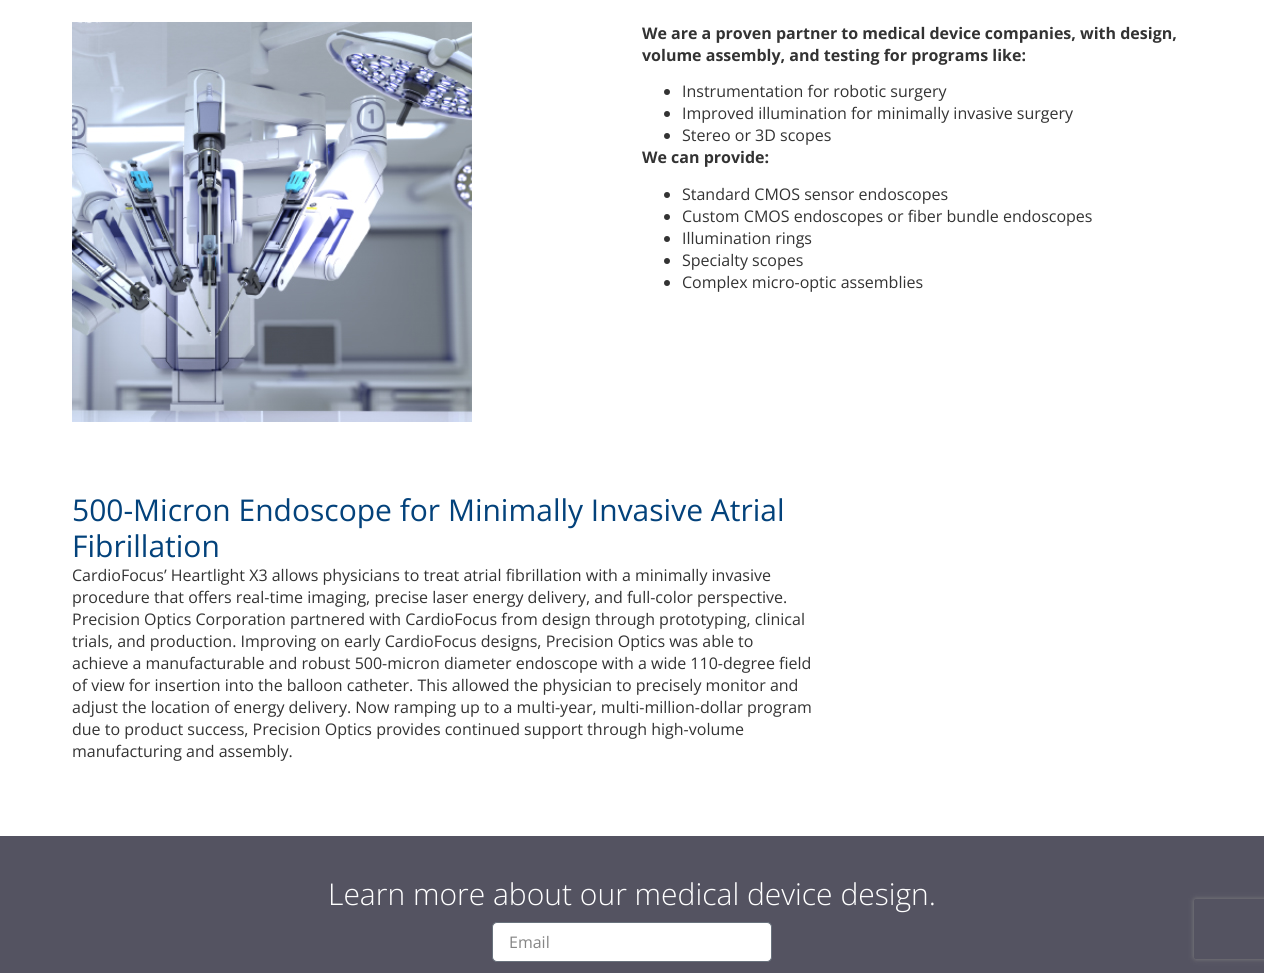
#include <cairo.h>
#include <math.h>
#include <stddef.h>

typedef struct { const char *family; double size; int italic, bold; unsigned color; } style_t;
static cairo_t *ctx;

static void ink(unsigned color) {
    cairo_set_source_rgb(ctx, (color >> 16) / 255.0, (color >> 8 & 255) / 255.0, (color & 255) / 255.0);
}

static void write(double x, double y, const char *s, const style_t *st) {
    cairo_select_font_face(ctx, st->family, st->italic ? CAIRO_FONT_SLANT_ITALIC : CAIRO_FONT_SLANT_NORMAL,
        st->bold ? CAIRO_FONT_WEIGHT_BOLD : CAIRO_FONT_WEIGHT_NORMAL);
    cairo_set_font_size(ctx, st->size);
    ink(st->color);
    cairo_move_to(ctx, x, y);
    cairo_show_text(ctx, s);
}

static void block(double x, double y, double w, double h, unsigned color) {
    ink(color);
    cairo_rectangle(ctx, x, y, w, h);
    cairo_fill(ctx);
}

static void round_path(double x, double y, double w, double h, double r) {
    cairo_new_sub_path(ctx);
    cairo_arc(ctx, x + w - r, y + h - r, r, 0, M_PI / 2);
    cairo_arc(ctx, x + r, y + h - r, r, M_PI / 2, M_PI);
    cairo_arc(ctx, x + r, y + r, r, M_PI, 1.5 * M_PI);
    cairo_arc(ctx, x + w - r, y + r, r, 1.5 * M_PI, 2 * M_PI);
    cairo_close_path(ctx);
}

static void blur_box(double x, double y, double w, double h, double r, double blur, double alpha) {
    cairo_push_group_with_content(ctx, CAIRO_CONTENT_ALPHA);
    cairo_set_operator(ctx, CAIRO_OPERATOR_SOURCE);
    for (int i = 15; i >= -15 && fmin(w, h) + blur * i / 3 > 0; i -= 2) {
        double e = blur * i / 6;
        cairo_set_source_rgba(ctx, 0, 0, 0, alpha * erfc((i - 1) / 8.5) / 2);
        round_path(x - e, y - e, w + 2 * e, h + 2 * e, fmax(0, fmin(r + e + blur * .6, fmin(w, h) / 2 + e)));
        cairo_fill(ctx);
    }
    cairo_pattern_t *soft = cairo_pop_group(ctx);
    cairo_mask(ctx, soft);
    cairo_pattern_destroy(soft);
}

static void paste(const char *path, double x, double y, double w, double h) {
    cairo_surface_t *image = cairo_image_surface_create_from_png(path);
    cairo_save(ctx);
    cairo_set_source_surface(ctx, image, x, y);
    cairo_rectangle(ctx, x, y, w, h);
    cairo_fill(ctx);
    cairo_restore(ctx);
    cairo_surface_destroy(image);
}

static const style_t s1 = {"Open Sans", 16, 0, 1, 0x333333};
static const style_t s2 = {"Open Sans", 16, 0, 0, 0x333333};
static const style_t s3 = {"Open Sans", 30, 0, 0, 0x03427b};
static const style_t s4 = {"Open Sans Light", 30, 0, 0, 0xffffff};
static const style_t s5 = {"Open Sans", 16, 0, 0, 0x858585};

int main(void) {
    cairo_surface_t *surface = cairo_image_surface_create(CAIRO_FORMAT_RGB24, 1264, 973);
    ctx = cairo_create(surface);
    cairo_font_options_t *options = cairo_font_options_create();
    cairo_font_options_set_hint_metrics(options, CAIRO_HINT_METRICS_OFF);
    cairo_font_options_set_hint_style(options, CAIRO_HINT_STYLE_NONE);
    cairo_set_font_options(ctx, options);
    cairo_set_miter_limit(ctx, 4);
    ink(0xffffff);
    cairo_paint(ctx);
    paste("pic1.png", 72, 22, 400, 400);
    write(642, 39, "We are a proven partner to medical device companies, with design,", &s1);
    write(642, 61, "volume assembly, and testing for programs like:", &s1);
    cairo_new_path(ctx);
    cairo_arc(ctx, 667, 92, 3, 0, 2 * M_PI);
    cairo_fill(ctx);
    write(682, 97, "Instrumentation for robotic surgery", &s2);
    cairo_new_path(ctx);
    cairo_arc(ctx, 667, 114, 3, 0, 2 * M_PI);
    cairo_fill(ctx);
    write(682, 119, "Improved illumination for minimally invasive surgery", &s2);
    cairo_new_path(ctx);
    cairo_arc(ctx, 667, 136, 3, 0, 2 * M_PI);
    cairo_fill(ctx);
    write(682, 141, "Stereo or 3D scopes", &s2);
    write(642, 163, "We can provide:", &s1);
    cairo_new_path(ctx);
    cairo_arc(ctx, 667, 195, 3, 0, 2 * M_PI);
    cairo_fill(ctx);
    write(682, 200, "Standard CMOS sensor endoscopes", &s2);
    cairo_new_path(ctx);
    cairo_arc(ctx, 667, 217, 3, 0, 2 * M_PI);
    cairo_fill(ctx);
    write(682, 222, "Custom CMOS endoscopes or fiber bundle endoscopes", &s2);
    cairo_new_path(ctx);
    cairo_arc(ctx, 667, 239, 3, 0, 2 * M_PI);
    cairo_fill(ctx);
    write(682, 244, "Illumination rings", &s2);
    cairo_new_path(ctx);
    cairo_arc(ctx, 667, 261, 3, 0, 2 * M_PI);
    cairo_fill(ctx);
    write(682, 266, "Specialty scopes", &s2);
    cairo_new_path(ctx);
    cairo_arc(ctx, 667, 283, 3, 0, 2 * M_PI);
    cairo_fill(ctx);
    write(682, 288, "Complex micro-optic assemblies", &s2);
    write(72, 521, "500-Micron Endoscope for Minimally Invasive Atrial", &s3);
    write(72, 557, "Fibrillation", &s3);
    write(72, 581, "CardioFocus’ Heartlight X3 allows physicians to treat atrial fibrillation with a minimally invasive", &s2);
    write(72, 603, "procedure that offers real-time imaging, precise laser energy delivery, and full-color perspective.", &s2);
    write(72, 625, "Precision Optics Corporation partnered with CardioFocus from design through prototyping, clinical", &s2);
    write(72, 647, "trials, and production. Improving on early CardioFocus designs, Precision Optics was able to", &s2);
    write(72, 669, "achieve a manufacturable and robust 500-micron diameter endoscope with a wide 110-degree field", &s2);
    write(72, 691, "of view for insertion into the balloon catheter. This allowed the physician to precisely monitor and", &s2);
    write(72, 713, "adjust the location of energy delivery. Now ramping up to a multi-year, multi-million-dollar program", &s2);
    write(72, 735, "due to product success, Precision Optics provides continued support through high-volume", &s2);
    write(72, 757, "manufacturing and assembly.", &s2);
    block(0, 836, 1264, 137, 0x545361);
    write(328, 905, "Learn more about our medical device design.", &s4);
    round_path(492.5, 922.5, 279, 39, 4.5);
    cairo_fill_preserve(ctx);
    ink(0x69727d);
    cairo_set_line_width(ctx, 1);
    cairo_stroke(ctx);
    write(509, 948, "Email", &s5);
    cairo_save(ctx);
    cairo_set_fill_rule(ctx, CAIRO_FILL_RULE_EVEN_ODD);
    cairo_new_path(ctx);
    cairo_move_to(ctx, 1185, 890);
    cairo_line_to(ctx, 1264, 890);
    cairo_line_to(ctx, 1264, 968);
    cairo_line_to(ctx, 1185, 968);
    cairo_close_path(ctx);
    cairo_move_to(ctx, 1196, 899);
    cairo_line_to(ctx, 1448, 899);
    cairo_curve_to(ctx, 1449, 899, 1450, 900, 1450, 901);
    cairo_line_to(ctx, 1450, 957);
    cairo_curve_to(ctx, 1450, 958, 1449, 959, 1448, 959);
    cairo_line_to(ctx, 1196, 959);
    cairo_curve_to(ctx, 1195, 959, 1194, 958, 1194, 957);
    cairo_line_to(ctx, 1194, 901);
    cairo_curve_to(ctx, 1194, 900, 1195, 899, 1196, 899);
    cairo_close_path(ctx);
    cairo_clip(ctx);
    ink(0x808080);
    blur_box(1194, 899, 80, 60, 2, 2.5, 1);
    cairo_restore(ctx);
    cairo_surface_write_to_png(surface, "screenshot.png");
    cairo_font_options_destroy(options);
    cairo_destroy(ctx);
    cairo_surface_destroy(surface);
    return 0;
}
